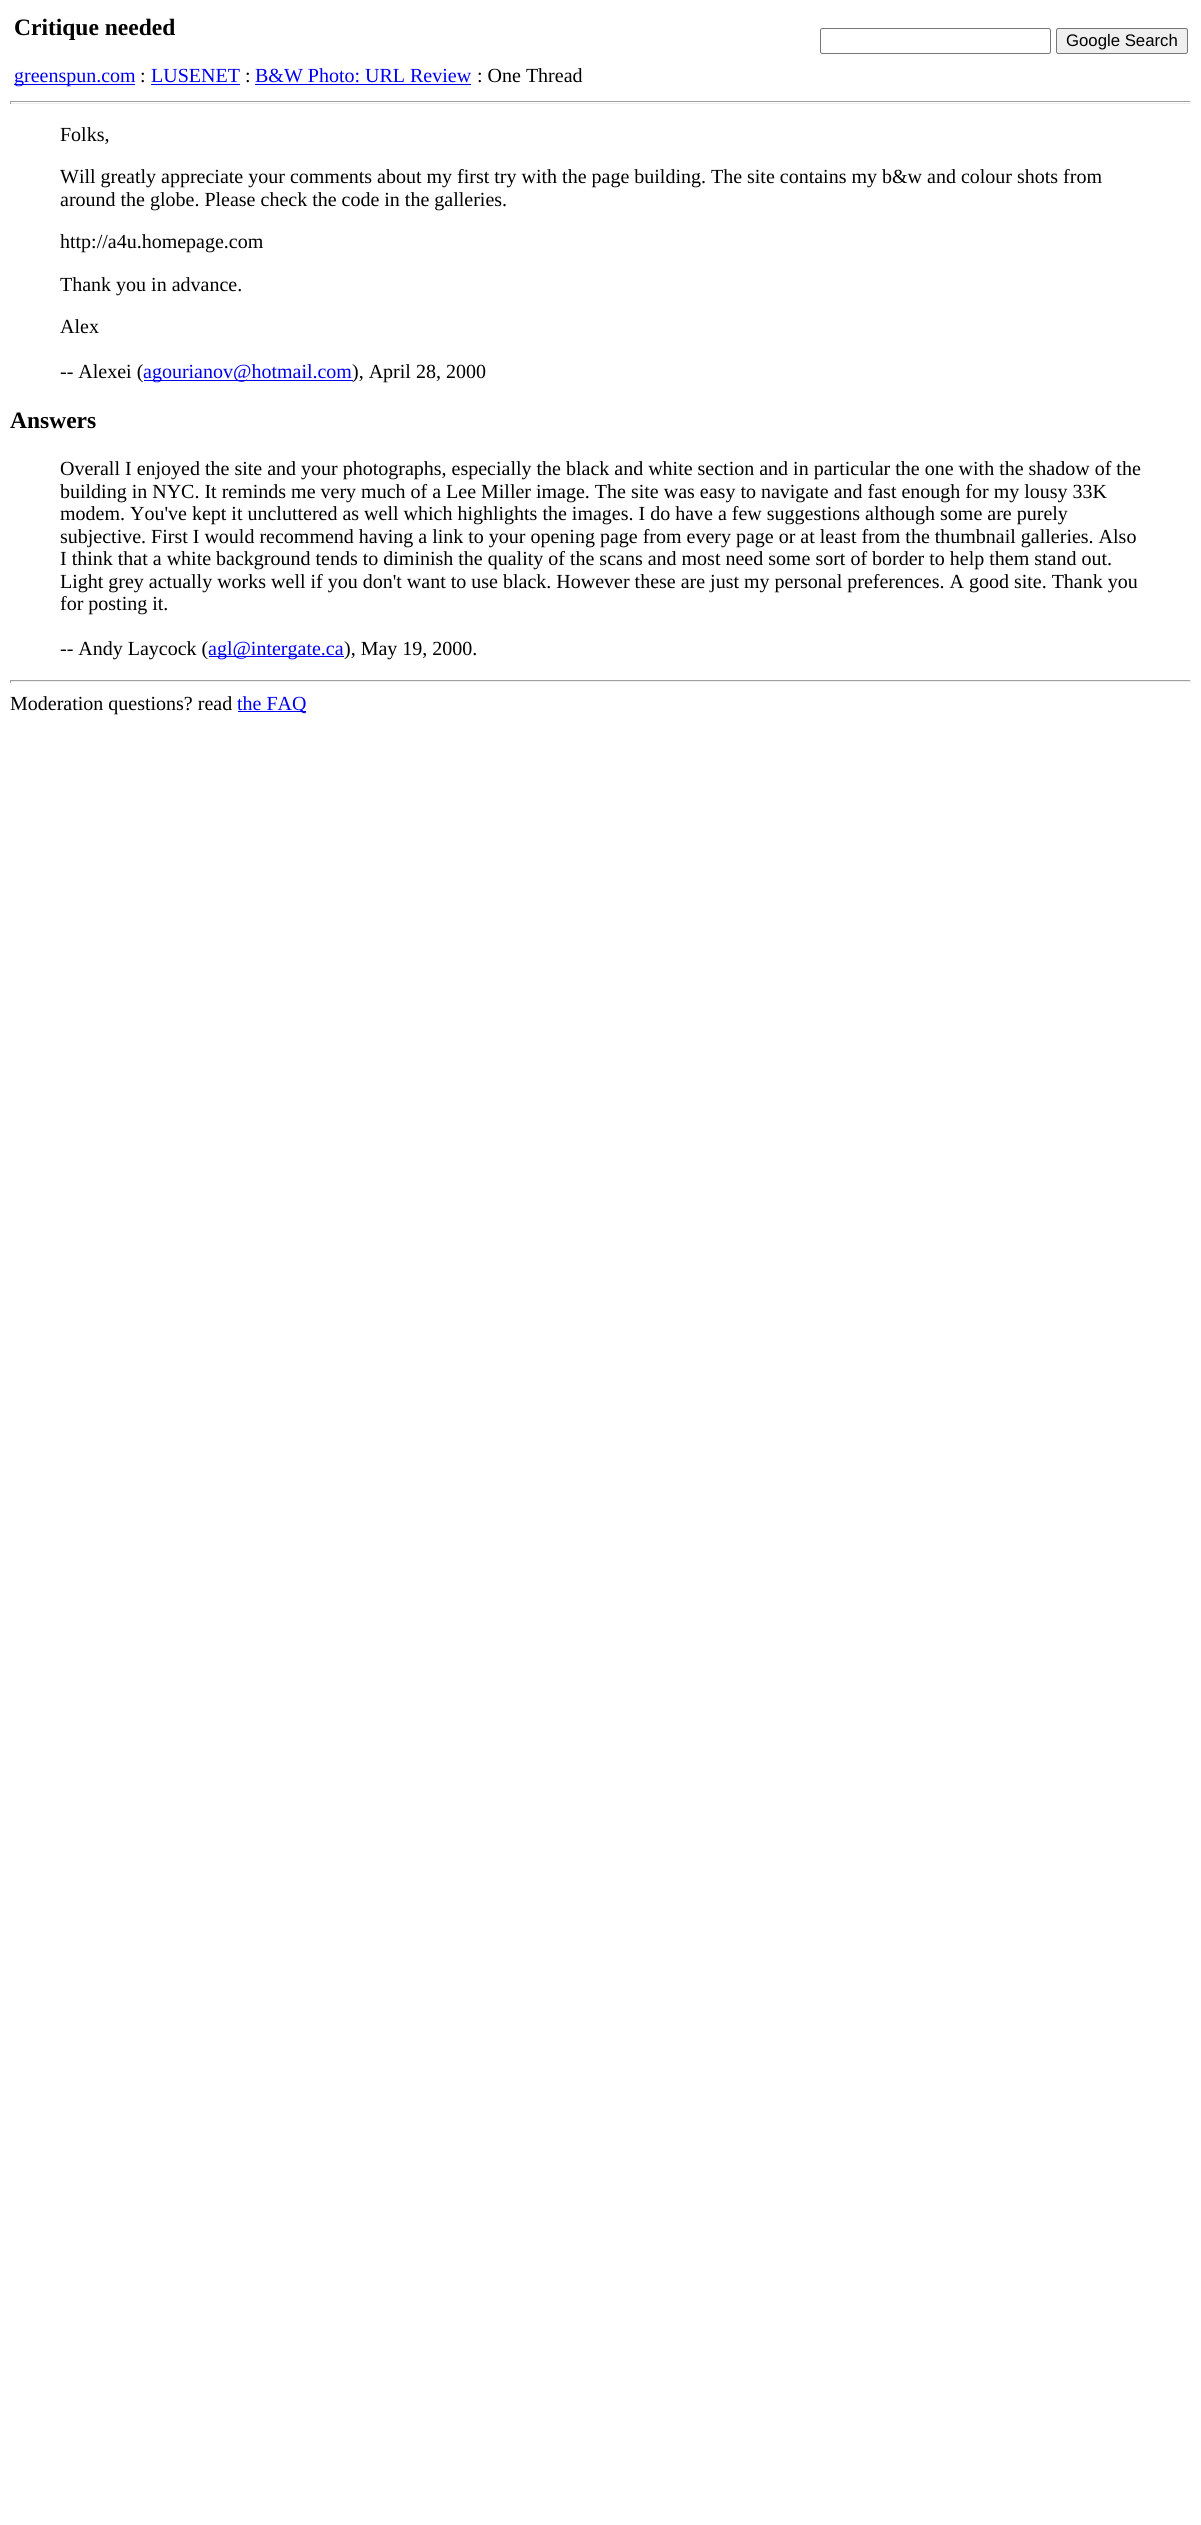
#include <cairo.h>
#include <math.h>
#include <stddef.h>

typedef struct { const char *family; double size; int italic, bold; unsigned color; } style_t;
static cairo_t *ctx;

static void ink(unsigned color) {
    cairo_set_source_rgb(ctx, (color >> 16) / 255.0, (color >> 8 & 255) / 255.0, (color & 255) / 255.0);
}

static void write(double x, double y, const char *s, const style_t *st) {
    cairo_select_font_face(ctx, st->family, st->italic ? CAIRO_FONT_SLANT_ITALIC : CAIRO_FONT_SLANT_NORMAL,
        st->bold ? CAIRO_FONT_WEIGHT_BOLD : CAIRO_FONT_WEIGHT_NORMAL);
    cairo_set_font_size(ctx, st->size);
    ink(st->color);
    cairo_move_to(ctx, x, y);
    cairo_show_text(ctx, s);
}

static void block(double x, double y, double w, double h, unsigned color) {
    ink(color);
    cairo_rectangle(ctx, x, y, w, h);
    cairo_fill(ctx);
}

static void round_path(double x, double y, double w, double h, double r) {
    cairo_new_sub_path(ctx);
    cairo_arc(ctx, x + w - r, y + h - r, r, 0, M_PI / 2);
    cairo_arc(ctx, x + r, y + h - r, r, M_PI / 2, M_PI);
    cairo_arc(ctx, x + r, y + r, r, M_PI, 1.5 * M_PI);
    cairo_arc(ctx, x + w - r, y + r, r, 1.5 * M_PI, 2 * M_PI);
    cairo_close_path(ctx);
}

static const style_t s1 = {"Liberation Serif", 23.5, 0, 1, 0x000000};
static const style_t s2 = {"Liberation Serif", 20, 0, 0, 0x0000ee};
static const style_t s3 = {"Liberation Serif", 20, 0, 0, 0x000000};
static const style_t s4 = {"Liberation Sans", 16.75, 0, 0, 0x000000};

int main(void) {
    cairo_surface_t *surface = cairo_image_surface_create(CAIRO_FORMAT_RGB24, 1201, 2525);
    ctx = cairo_create(surface);
    cairo_font_options_t *options = cairo_font_options_create();
    cairo_font_options_set_hint_metrics(options, CAIRO_HINT_METRICS_OFF);
    cairo_font_options_set_hint_style(options, CAIRO_HINT_STYLE_NONE);
    cairo_set_font_options(ctx, options);
    cairo_set_miter_limit(ctx, 4);
    ink(0xffffff);
    cairo_paint(ctx);
    write(14, 35, "Critique needed", &s1);
    block(14, 84, 121, 1, 0x0000ee);
    write(14, 82, "greenspun.com", &s2);
    write(140, 82, ":", &s3);
    write(151, 82, "LUSENET", &s2);
    block(151, 84, 89, 1, 0x0000ee);
    write(245, 82, ":", &s3);
    write(255, 82, "B&W Photo: URL Review", &s2);
    block(255, 84, 216, 1, 0x0000ee);
    write(477, 82, ": One Thread", &s3);
    round_path(820.5, 28.5, 230, 25, 2);
    ink(0x767676);
    cairo_set_line_width(ctx, 1);
    cairo_stroke(ctx);
    ink(0xefefef);
    round_path(1056.5, 28.5, 131, 25, 2);
    cairo_fill_preserve(ctx);
    ink(0x767676);
    cairo_stroke(ctx);
    write(1066, 46, "Google Search", &s4);
    block(10, 101, 1181, 1, 0x9f9f9f);
    block(1190, 101, 1, 3, 0xeeeeee);
    block(10, 103, 1181, 1, 0xeeeeee);
    block(10, 101, 1, 3, 0x9f9f9f);
    write(60, 141, "Folks,", &s3);
    write(60, 183, "Will greatly appreciate your comments about my first try with the page building. The site contains my b&w and colour shots from", &s3);
    write(60, 206, "around the globe. Please check the code in the galleries.", &s3);
    write(60, 248, "http://a4u.homepage.com", &s3);
    write(60, 291, "Thank you in advance.", &s3);
    write(60, 333, "Alex", &s3);
    write(60, 378, "-- Alexei (", &s3);
    block(144, 380, 209, 1, 0x0000ee);
    write(143, 378, "agourianov@hotmail.com", &s2);
    write(352, 378, "), April 28, 2000", &s3);
    write(10, 428, "Answers", &s1);
    write(60, 475, "Overall I enjoyed the site and your photographs, especially the black and white section and in particular the one with the shadow of the", &s3);
    write(60, 498, "building in NYC. It reminds me very much of a Lee Miller image. The site was easy to navigate and fast enough for my lousy 33K", &s3);
    write(60, 520, "modem. You've kept it uncluttered as well which highlights the images. I do have a few suggestions although some are purely", &s3);
    write(60, 543, "subjective. First I would recommend having a link to your opening page from every page or at least from the thumbnail galleries. Also", &s3);
    write(60, 565, "I think that a white background tends to diminish the quality of the scans and most need some sort of border to help them stand out.", &s3);
    write(60, 588, "Light grey actually works well if you don't want to use black. However these are just my personal preferences. A good site. Thank you", &s3);
    write(60, 610, "for posting it.", &s3);
    write(60, 655, "-- Andy Laycock (", &s3);
    block(209, 656, 135, 1, 0x0000ee);
    write(208, 655, "agl@intergate.ca", &s2);
    write(344, 655, "), May 19, 2000.", &s3);
    block(10, 680, 1181, 1, 0x9f9f9f);
    block(1190, 680, 1, 3, 0xeeeeee);
    block(10, 681, 1181, 1, 0xeeeeee);
    block(10, 680, 1, 3, 0x9f9f9f);
    write(10, 710, "Moderation questions? read", &s3);
    block(238, 711, 68, 1, 0x0000ee);
    write(237, 710, "the FAQ", &s2);
    cairo_surface_write_to_png(surface, "screenshot.png");
    cairo_font_options_destroy(options);
    cairo_destroy(ctx);
    cairo_surface_destroy(surface);
    return 0;
}
